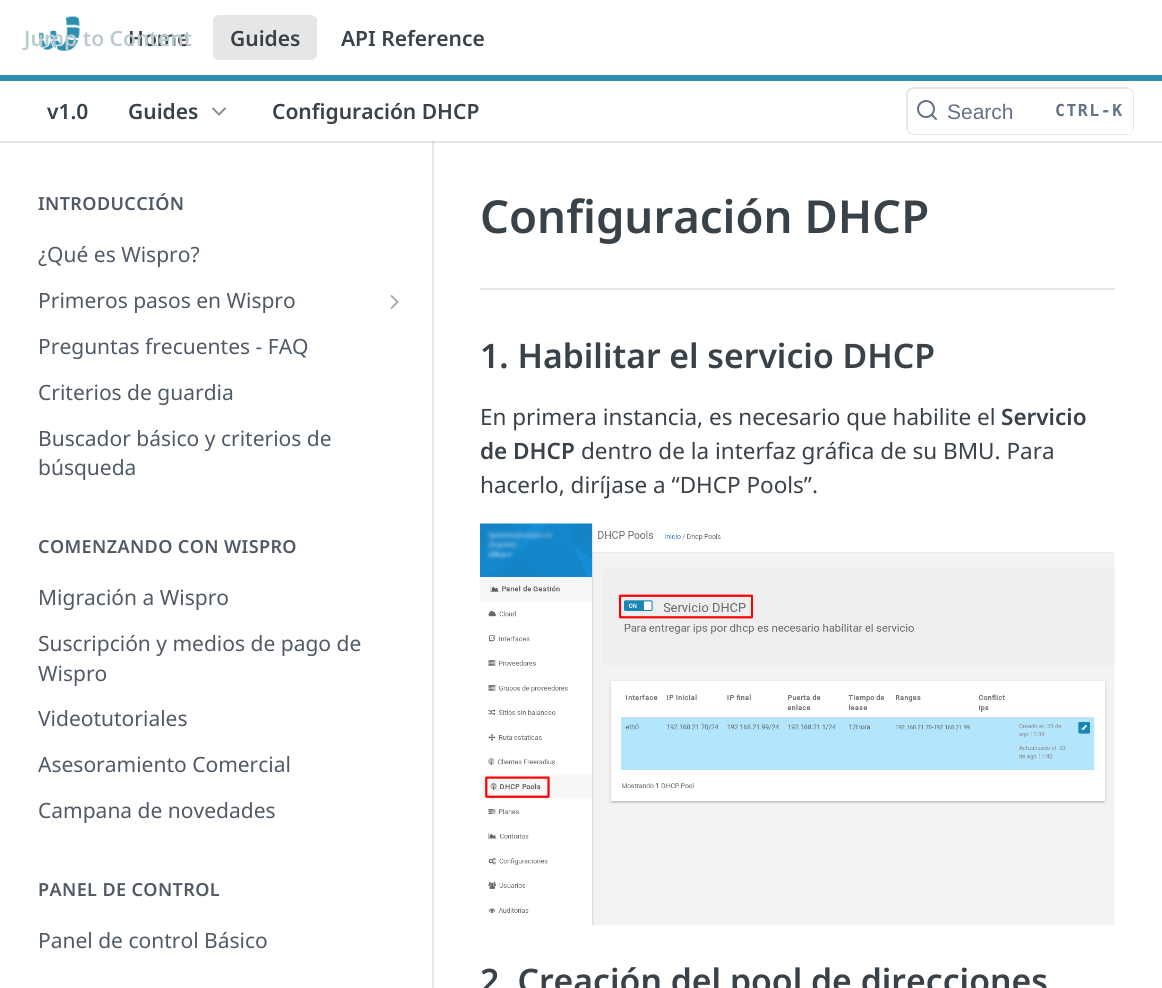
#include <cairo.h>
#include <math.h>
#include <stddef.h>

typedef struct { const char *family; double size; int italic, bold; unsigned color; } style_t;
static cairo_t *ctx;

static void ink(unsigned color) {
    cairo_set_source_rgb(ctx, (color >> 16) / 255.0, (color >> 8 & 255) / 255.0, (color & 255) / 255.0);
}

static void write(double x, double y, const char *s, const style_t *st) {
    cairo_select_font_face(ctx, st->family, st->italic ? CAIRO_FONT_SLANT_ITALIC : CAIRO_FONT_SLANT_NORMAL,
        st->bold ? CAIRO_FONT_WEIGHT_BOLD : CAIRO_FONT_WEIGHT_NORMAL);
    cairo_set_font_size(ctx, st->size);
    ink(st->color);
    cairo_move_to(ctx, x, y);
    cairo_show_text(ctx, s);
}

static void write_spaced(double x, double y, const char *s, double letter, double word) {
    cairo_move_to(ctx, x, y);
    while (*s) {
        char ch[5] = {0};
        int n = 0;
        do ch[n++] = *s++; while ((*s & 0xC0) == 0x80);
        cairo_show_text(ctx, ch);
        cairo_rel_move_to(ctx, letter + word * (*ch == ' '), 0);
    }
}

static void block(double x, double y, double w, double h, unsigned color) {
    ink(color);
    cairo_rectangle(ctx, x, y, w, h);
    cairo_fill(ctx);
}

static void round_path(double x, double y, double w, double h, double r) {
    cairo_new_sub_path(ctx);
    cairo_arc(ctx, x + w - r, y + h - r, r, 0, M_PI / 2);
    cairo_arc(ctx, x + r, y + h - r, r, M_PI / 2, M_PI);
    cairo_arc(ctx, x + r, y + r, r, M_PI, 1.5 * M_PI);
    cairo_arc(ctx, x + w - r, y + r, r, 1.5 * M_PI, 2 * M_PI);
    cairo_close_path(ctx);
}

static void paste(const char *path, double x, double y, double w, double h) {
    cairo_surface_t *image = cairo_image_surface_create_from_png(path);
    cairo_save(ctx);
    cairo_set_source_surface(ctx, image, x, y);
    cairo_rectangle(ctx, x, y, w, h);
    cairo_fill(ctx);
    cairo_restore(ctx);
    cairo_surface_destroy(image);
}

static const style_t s1 = {"Noto Sans SemiBold", 21, 0, 0, 0x384248};
static const style_t s2 = {"Noto Sans SemiBold", 21, 0, 0, 0xbbccd1};
static const style_t s3 = {"Liberation Sans", 21, 0, 0, 0x637288};
static const style_t s4 = {"Noto Sans", 21, 0, 0, 0x4f5a66};
static const style_t s5 = {"Noto Sans SemiBold", 45.5, 0, 0, 0x384248};
static const style_t s6 = {"Noto Sans SemiBold", 33.75, 0, 0, 0x384248};
static const style_t s7 = {"Noto Sans", 22.5, 0, 0, 0x384248};
static const style_t s8 = {"Noto Sans SemiBold", 22.5, 0, 0, 0x384248};

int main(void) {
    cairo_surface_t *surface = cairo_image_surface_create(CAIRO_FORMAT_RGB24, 1162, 988);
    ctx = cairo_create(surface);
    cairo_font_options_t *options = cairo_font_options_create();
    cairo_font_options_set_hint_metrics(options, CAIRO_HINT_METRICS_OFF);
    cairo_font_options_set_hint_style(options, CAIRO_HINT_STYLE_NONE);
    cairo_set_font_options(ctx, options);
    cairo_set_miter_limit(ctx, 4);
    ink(0xffffff);
    cairo_paint(ctx);
    ink(0xe6e6e6);
    cairo_new_path(ctx);
    cairo_move_to(ctx, 2, 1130);
    cairo_line_to(ctx, 434, 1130);
    cairo_line_to(ctx, 434, 141);
    cairo_line_to(ctx, 432, 141);
    cairo_line_to(ctx, 432, 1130);
    cairo_close_path(ctx);
    cairo_fill(ctx);
    cairo_set_source_rgba(ctx, 0, 0, 0, 0.1);
    cairo_new_path(ctx);
    cairo_move_to(ctx, 0, 141);
    cairo_line_to(ctx, 0, 143);
    cairo_line_to(ctx, 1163, 143);
    cairo_line_to(ctx, 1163, 2);
    cairo_line_to(ctx, 1162, 2);
    cairo_line_to(ctx, 1162, 141);
    cairo_close_path(ctx);
    cairo_fill(ctx);
    block(0, 75, 1162, 6, 0x2b8fad);
    paste("pic1.png", 39, 16, 41, 35);
    write(128, 46, "Home", &s1);
    write(24, 46, "Jump to Content", &s2);
    ink(0xe6e6e6);
    round_path(213, 15, 104, 45, 6);
    cairo_fill(ctx);
    write(230, 46, "Guides", &s1);
    write(341, 46, "API Reference", &s1);
    write(47, 119, "v1.0", &s1);
    write(128, 119, "Guides", &s1);
    paste("pic2.png", 212, 107, 14, 9);
    write(272, 119, "Configuración DHCP", &s1);
    round_path(907, 88, 226, 46, 7);
    ink(0xe6e6e6);
    cairo_stroke(ctx);
    ink(0xffffff);
    round_path(908, 89, 225, 45, 6);
    cairo_fill(ctx);
    paste("pic3.png", 917, 100, 20, 20);
    write(947, 119, "Search", &s3);
    cairo_select_font_face(ctx, "DejaVu Sans Mono", CAIRO_FONT_SLANT_NORMAL, CAIRO_FONT_WEIGHT_BOLD);
    cairo_set_font_size(ctx, 16.5);
    write_spaced(1055, 116, "CTRL-K", 1.5, 0);
    cairo_select_font_face(ctx, "Noto Sans SemiBold", CAIRO_FONT_SLANT_NORMAL, CAIRO_FONT_WEIGHT_NORMAL);
    cairo_set_font_size(ctx, 18);
    ink(0x4f5a66);
    write_spaced(38, 210, "INTRODUCCIÓN", 0.4, 0);
    write(38, 262, "¿Qué es Wispro?", &s4);
    write(38, 308, "Primeros pasos en Wispro", &s4);
    paste("pic4.png", 390, 295, 9, 14);
    write(38, 354, "Preguntas frecuentes - FAQ", &s4);
    write(38, 400, "Criterios de guardia", &s4);
    write(38, 446, "Buscador básico y criterios de", &s4);
    write(38, 475, "búsqueda", &s4);
    cairo_select_font_face(ctx, "Noto Sans SemiBold", CAIRO_FONT_SLANT_NORMAL, CAIRO_FONT_WEIGHT_NORMAL);
    cairo_set_font_size(ctx, 18);
    write_spaced(38, 553, "COMENZANDO CON WISPRO", 0.4, 0);
    write(38, 605, "Migración a Wispro", &s4);
    write(38, 651, "Suscripción y medios de pago de", &s4);
    write(38, 681, "Wispro", &s4);
    write(38, 726, "Videotutoriales", &s4);
    write(38, 772, "Asesoramiento Comercial", &s4);
    write(38, 818, "Campana de novedades", &s4);
    cairo_select_font_face(ctx, "Noto Sans SemiBold", CAIRO_FONT_SLANT_NORMAL, CAIRO_FONT_WEIGHT_NORMAL);
    cairo_set_font_size(ctx, 18);
    write_spaced(38, 896, "PANEL DE CONTROL", 0.4, 0);
    write(38, 948, "Panel de control Básico", &s4);
    block(480, 288, 635, 2, 0xe6e6e6);
    write(480, 233, "Configuración DHCP", &s5);
    write(480, 368, "1. Habilitar el servicio DHCP", &s6);
    write(480, 425, "En primera instancia, es necesario que habilite el", &s7);
    write(1001, 425, "Servicio", &s8);
    write(480, 459, "de DHCP", &s8);
    write(581, 459, "dentro de la interfaz gráfica de su BMU. Para", &s7);
    write(480, 493, "hacerlo, diríjase a “DHCP Pools”.", &s7);
    paste("pic5.png", 480, 523, 635, 403);
    write(480, 993, "2. Creación del pool de direcciones", &s6);
    cairo_surface_write_to_png(surface, "screenshot.png");
    cairo_font_options_destroy(options);
    cairo_destroy(ctx);
    cairo_surface_destroy(surface);
    return 0;
}
